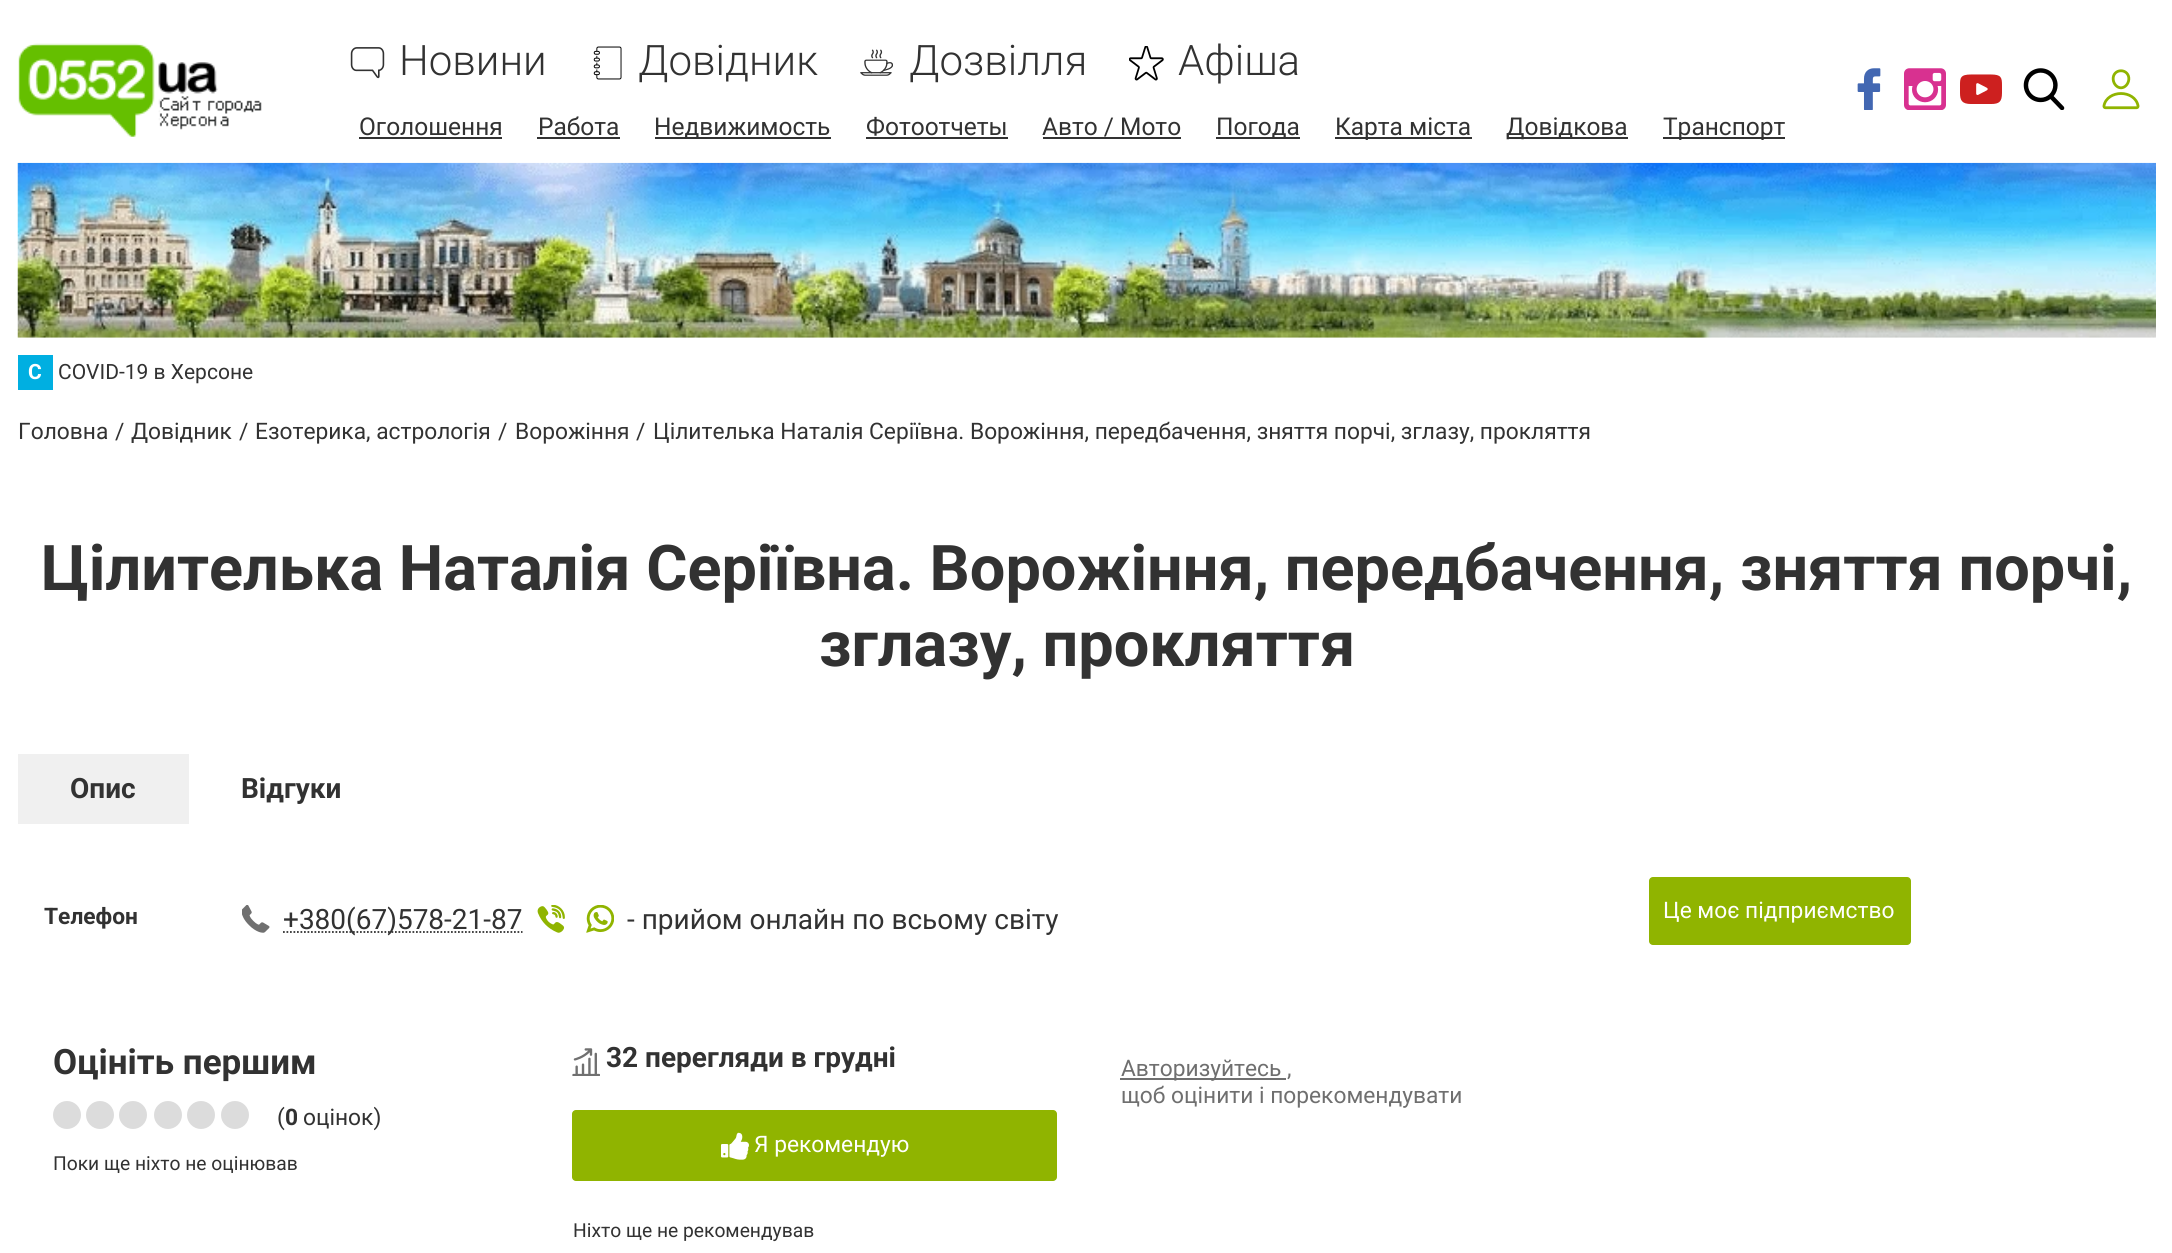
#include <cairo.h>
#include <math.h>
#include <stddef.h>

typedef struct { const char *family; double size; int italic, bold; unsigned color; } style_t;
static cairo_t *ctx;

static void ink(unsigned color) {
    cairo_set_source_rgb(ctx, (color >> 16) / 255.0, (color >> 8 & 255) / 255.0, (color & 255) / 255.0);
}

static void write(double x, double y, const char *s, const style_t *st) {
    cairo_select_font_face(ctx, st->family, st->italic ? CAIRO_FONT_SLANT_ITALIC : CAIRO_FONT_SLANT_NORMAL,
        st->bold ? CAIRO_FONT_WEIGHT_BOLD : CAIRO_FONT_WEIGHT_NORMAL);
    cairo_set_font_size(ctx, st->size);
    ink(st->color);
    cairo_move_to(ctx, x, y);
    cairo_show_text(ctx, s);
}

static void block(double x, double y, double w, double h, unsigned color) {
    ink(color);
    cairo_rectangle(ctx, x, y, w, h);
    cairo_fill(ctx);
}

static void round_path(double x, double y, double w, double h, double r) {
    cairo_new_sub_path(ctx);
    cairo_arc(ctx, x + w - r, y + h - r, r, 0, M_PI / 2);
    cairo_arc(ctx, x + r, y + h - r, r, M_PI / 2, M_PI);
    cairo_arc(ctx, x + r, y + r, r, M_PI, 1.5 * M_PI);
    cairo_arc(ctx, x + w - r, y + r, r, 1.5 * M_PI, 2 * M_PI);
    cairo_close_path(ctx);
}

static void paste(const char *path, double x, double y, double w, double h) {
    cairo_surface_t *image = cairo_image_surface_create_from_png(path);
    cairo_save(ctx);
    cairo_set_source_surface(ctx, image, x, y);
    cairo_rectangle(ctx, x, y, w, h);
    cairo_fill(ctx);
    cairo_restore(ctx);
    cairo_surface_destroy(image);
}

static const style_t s1 = {"Roboto Light", 42, 0, 0, 0x323232};
static const style_t s2 = {"Roboto", 24.5, 0, 0, 0x323232};
static const style_t s3 = {"Roboto", 21, 0, 1, 0xffffff};
static const style_t s4 = {"Roboto", 21, 0, 0, 0x323232};
static const style_t s5 = {"Roboto", 22.75, 0, 0, 0x323232};
static const style_t s6 = {"Roboto", 63, 0, 1, 0x323232};
static const style_t s7 = {"Roboto", 28, 0, 1, 0x323232};
static const style_t s8 = {"Roboto", 22.75, 0, 1, 0x323232};
static const style_t s9 = {"Roboto", 28, 0, 0, 0x323232};
static const style_t s10 = {"Roboto", 35, 0, 1, 0x323232};
static const style_t s11 = {"Roboto", 19.25, 0, 0, 0x323232};
static const style_t s12 = {"Roboto", 22.75, 0, 0, 0xffffff};
static const style_t s13 = {"Roboto", 22.75, 0, 0, 0x6f6f6f};

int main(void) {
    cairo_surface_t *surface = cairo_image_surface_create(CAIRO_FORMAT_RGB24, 2172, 1253);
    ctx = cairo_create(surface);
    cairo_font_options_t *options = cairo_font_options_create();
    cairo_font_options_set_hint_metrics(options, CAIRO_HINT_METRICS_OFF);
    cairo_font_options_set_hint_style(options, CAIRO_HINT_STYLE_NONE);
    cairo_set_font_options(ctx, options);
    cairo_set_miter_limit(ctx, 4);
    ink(0xffffff);
    cairo_paint(ctx);
    paste("pic1.png", 18, 43, 244, 94);
    paste("pic2.png", 350, 47, 35, 32);
    write(399, 75, "Новини", &s1);
    paste("pic3.png", 593, 46, 29, 34);
    write(638, 75, "Довідник", &s1);
    paste("pic4.png", 860, 49, 33, 27);
    write(909, 75, "Дозвілля", &s1);
    paste("pic5.png", 1129, 46, 35, 35);
    write(1178, 75, "Афіша", &s1);
    write(359, 135, "Оголошення", &s2);
    block(359, 137, 143, 2, 0x323232);
    write(538, 135, "Работа", &s2);
    block(537, 137, 83, 2, 0x323232);
    block(655, 137, 176, 2, 0x323232);
    write(654, 135, "Недвижимость", &s2);
    write(866, 135, "Фотоотчеты", &s2);
    block(866, 137, 142, 2, 0x323232);
    write(1042, 135, "Авто / Мото", &s2);
    block(1043, 137, 138, 2, 0x323232);
    block(1216, 137, 84, 2, 0x323232);
    write(1216, 135, "Погода", &s2);
    block(1335, 137, 137, 2, 0x323232);
    write(1335, 135, "Карта міста", &s2);
    block(1507, 137, 121, 2, 0x323232);
    write(1506, 135, "Довідкова", &s2);
    block(1663, 137, 122, 2, 0x323232);
    write(1663, 135, "Транспорт", &s2);
    paste("pic6.png", 1857, 68, 24, 42);
    paste("pic7.png", 1904, 68, 42, 42);
    paste("pic8.png", 1960, 74, 42, 30);
    paste("pic9.png", 2023, 68, 42, 42);
    paste("pic10.png", 2102, 69, 38, 41);
    paste("pic11.png", 17, 162, 2139, 176);
    block(18, 355, 35, 35, 0x00afe1);
    write(28, 379, "C", &s3);
    write(58, 379, "COVID-19 в Херсоне", &s4);
    write(18, 439, "Головна", &s5);
    write(115, 439, "/", &s5);
    write(131, 439, "Довідник", &s5);
    write(239, 439, "/", &s5);
    write(255, 439, "Езотерика, астрологія", &s5);
    write(498, 439, "/", &s5);
    write(515, 439, "Ворожіння", &s5);
    write(636, 439, "/", &s5);
    write(653, 439, "Цілителька Наталія Серіївна. Ворожіння, передбачення, зняття порчі, зглазу, прокляття", &s5);
    write(41, 590, "Цілителька Наталія Серіївна. Ворожіння, передбачення, зняття порчі,", &s6);
    write(819, 666, "зглазу, прокляття", &s6);
    block(18, 754, 171, 70, 0xf0f0f0);
    write(70, 798, "Опис", &s7);
    write(241, 798, "Відгуки", &s7);
    write(44, 924, "Телефон", &s8);
    paste("pic12.png", 242, 905, 28, 28);
    cairo_new_path(ctx);
    cairo_move_to(ctx, 283, 932);
    cairo_line_to(ctx, 522.5, 932);
    cairo_set_line_width(ctx, 1.8);
    cairo_set_dash(ctx, (double[]){1.75, 1.75}, 2, 0);
    cairo_stroke(ctx);
    write(283, 929, "+380(67)578-21-87", &s9);
    paste("pic13.png", 537, 905, 28, 28);
    paste("pic14.png", 586, 905, 28, 28);
    write(627, 929, "- прийом онлайн по всьому світу", &s9);
    write(53, 1074, "Оцініть першим", &s10);
    ink(0xdcdcdc);
    cairo_new_path(ctx);
    cairo_arc(ctx, 67, 1115, 14, 0, 2 * M_PI);
    cairo_fill(ctx);
    cairo_arc(ctx, 100, 1115, 14, 0, 2 * M_PI);
    cairo_fill(ctx);
    cairo_arc(ctx, 133, 1115, 14, 0, 2 * M_PI);
    cairo_fill(ctx);
    cairo_arc(ctx, 168, 1115, 14, 0, 2 * M_PI);
    cairo_fill(ctx);
    cairo_arc(ctx, 201, 1115, 14, 0, 2 * M_PI);
    cairo_fill(ctx);
    cairo_arc(ctx, 235, 1115, 14, 0, 2 * M_PI);
    cairo_fill(ctx);
    write(277, 1125, "(", &s5);
    write(285, 1125, "0", &s8);
    write(303, 1125, "оцінок)", &s5);
    write(53, 1170, "Поки ще ніхто не оцінював", &s11);
    paste("pic15.png", 572, 1048, 28, 28);
    write(606, 1067, "32 перегляди в грудні", &s7);
    ink(0x90b400);
    round_path(572, 1110, 485, 71, 4);
    cairo_fill(ctx);
    paste("pic16.png", 721, 1132, 28, 28);
    write(754, 1152, "Я рекомендую", &s12);
    write(573, 1237, "Ніхто ще не рекомендував", &s11);
    block(1120, 1078, 166, 2, 0x707070);
    write(1121, 1076, "Авторизуйтесь", &s13);
    write(1287, 1076, ",", &s13);
    write(1121, 1103, "щоб оцінити і порекомендувати", &s13);
    ink(0x90b400);
    round_path(1649, 877, 262, 68, 4);
    cairo_fill(ctx);
    write(1663, 918, "Це моє підприємство", &s12);
    cairo_surface_write_to_png(surface, "screenshot.png");
    cairo_font_options_destroy(options);
    cairo_destroy(ctx);
    cairo_surface_destroy(surface);
    return 0;
}
